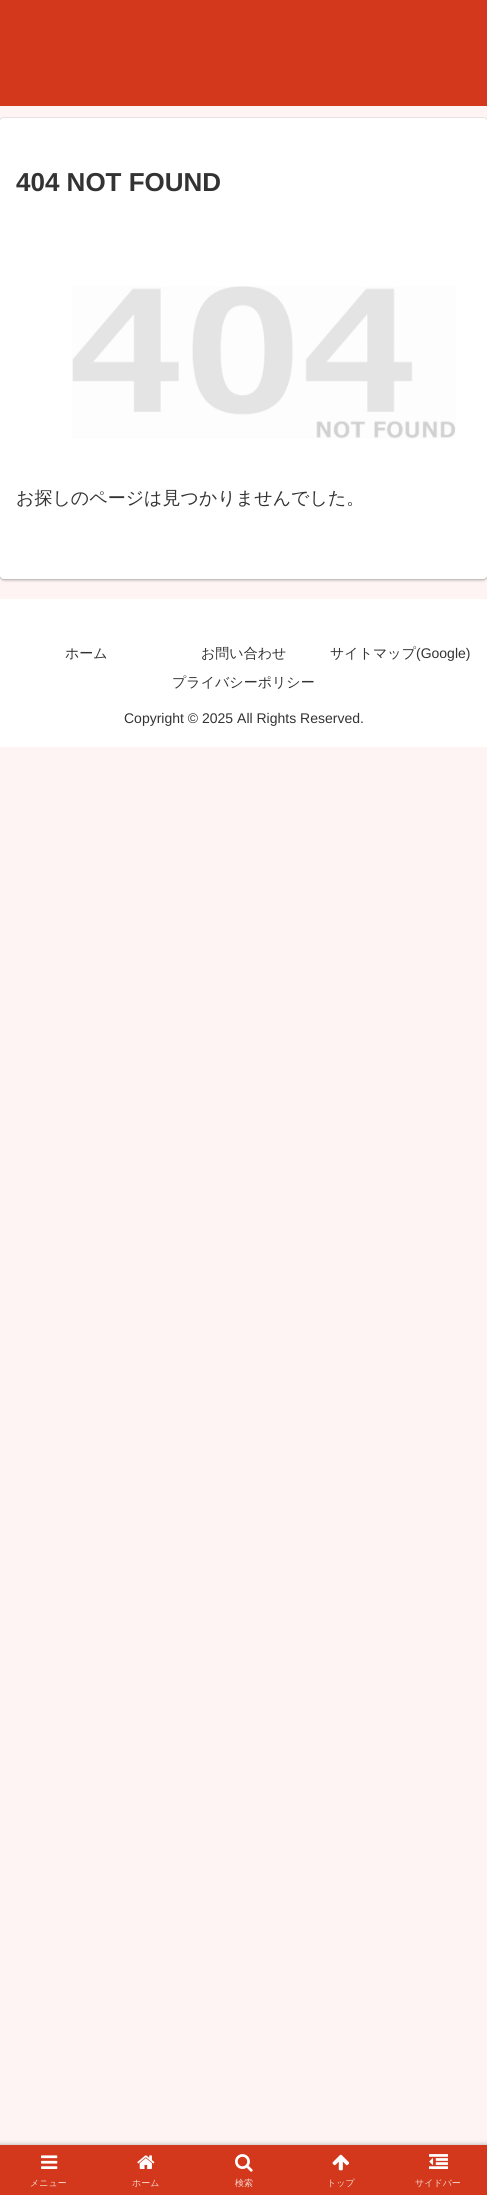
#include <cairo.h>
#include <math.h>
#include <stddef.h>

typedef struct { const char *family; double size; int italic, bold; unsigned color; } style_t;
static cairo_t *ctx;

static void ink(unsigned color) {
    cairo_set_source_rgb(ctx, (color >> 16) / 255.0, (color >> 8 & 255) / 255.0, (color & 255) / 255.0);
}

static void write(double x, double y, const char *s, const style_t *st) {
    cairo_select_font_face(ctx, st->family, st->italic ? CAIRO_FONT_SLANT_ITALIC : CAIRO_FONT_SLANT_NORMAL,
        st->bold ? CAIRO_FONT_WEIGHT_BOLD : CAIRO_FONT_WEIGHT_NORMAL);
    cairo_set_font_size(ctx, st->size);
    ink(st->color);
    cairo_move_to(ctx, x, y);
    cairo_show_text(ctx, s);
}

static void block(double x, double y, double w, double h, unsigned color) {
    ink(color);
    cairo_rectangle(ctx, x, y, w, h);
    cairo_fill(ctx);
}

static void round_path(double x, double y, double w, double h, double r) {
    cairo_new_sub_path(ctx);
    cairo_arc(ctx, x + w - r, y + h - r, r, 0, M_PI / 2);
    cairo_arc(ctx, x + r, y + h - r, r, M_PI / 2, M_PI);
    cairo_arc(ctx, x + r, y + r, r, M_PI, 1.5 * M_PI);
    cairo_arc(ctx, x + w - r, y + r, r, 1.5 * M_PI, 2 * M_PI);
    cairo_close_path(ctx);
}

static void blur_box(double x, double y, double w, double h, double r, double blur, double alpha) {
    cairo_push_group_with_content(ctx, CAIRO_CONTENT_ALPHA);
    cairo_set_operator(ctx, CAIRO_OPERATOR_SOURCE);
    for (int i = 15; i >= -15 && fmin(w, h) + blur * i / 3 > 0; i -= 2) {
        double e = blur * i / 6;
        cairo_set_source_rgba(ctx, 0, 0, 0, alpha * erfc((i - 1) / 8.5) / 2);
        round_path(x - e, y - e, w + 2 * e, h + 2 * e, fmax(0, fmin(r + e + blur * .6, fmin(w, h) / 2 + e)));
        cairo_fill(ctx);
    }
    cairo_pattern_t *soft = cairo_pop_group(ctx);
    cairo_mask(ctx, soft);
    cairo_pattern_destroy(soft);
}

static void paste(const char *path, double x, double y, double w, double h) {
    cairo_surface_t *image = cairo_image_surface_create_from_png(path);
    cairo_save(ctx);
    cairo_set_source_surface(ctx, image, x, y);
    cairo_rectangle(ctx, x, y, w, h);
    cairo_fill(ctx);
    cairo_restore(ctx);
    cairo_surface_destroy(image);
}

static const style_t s1 = {"Liberation Sans", 26, 0, 1, 0x333333};
static const style_t s2 = {"WenQuanYi Zen Hei Medium", 18, 0, 0, 0x333333};
static const style_t s3 = {"WenQuanYi Zen Hei Medium", 14, 0, 0, 0x333333};
static const style_t s4 = {"Liberation Sans", 14, 0, 0, 0x333333};
static const style_t s5 = {"WenQuanYi Zen Hei Medium", 9, 0, 0, 0xf6d7d2};

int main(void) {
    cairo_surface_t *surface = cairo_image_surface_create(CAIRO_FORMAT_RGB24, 487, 2195);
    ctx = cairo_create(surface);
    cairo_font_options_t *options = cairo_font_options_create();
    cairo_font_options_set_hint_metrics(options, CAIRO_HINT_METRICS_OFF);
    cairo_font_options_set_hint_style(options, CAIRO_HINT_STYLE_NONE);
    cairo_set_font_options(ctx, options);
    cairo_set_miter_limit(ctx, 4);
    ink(0xfef4f4);
    cairo_paint(ctx);
    block(0, 0, 487, 106, 0xd3381c);
    round_path(-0.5, 117.5, 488, 462, 4.5);
    ink(0xeae0e0);
    cairo_set_line_width(ctx, 1);
    cairo_stroke(ctx);
    ink(0x000000);
    blur_box(0, 120, 487, 461, 4, 1, 0.16);
    ink(0xffffff);
    round_path(0, 118, 487, 461, 4);
    cairo_fill(ctx);
    write(16, 191, "404 NOT FOUND", &s1);
    paste("pic1.png", 72, 286, 384, 153);
    write(16, 504, "お探しのページは見つかりませんでした。", &s2);
    block(0, 599, 487, 148, 0xffffff);
    write(65, 658, "ホーム", &s3);
    write(201, 658, "お問い合わせ", &s3);
    write(330, 658, "サイトマップ", &s3);
    write(416, 658, "(Google)", &s4);
    write(172, 687, "プライバシーポリシー", &s3);
    write(124, 723, "Copyright © 2025 All Rights Reserved.", &s4);
    ink(0xa9a9a9);
    blur_box(0, 2145, 487, 50, 0, 2.5, 1);
    block(0, 2145, 487, 50, 0xd3381c);
    paste("pic2.png", 41, 2155, 17, 14);
    write(30, 2186, "メニュー", &s5);
    paste("pic3.png", 137, 2155, 18, 14);
    write(132, 2186, "ホーム", &s5);
    paste("pic4.png", 235, 2154, 18, 18);
    write(235, 2186, "検索", &s5);
    paste("pic5.png", 332, 2154, 17, 17);
    write(327, 2186, "トップ", &s5);
    paste("pic6.png", 429, 2154, 19, 15);
    write(415, 2186, "サイドバー", &s5);
    cairo_surface_write_to_png(surface, "screenshot.png");
    cairo_font_options_destroy(options);
    cairo_destroy(ctx);
    cairo_surface_destroy(surface);
    return 0;
}
